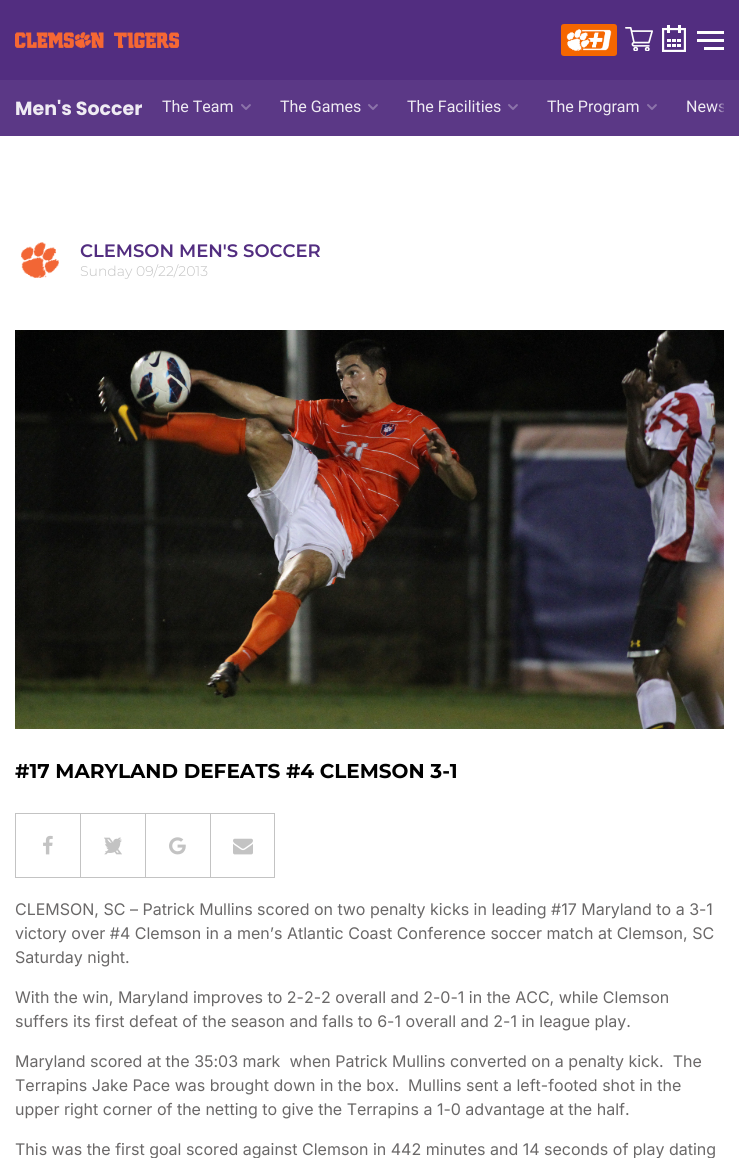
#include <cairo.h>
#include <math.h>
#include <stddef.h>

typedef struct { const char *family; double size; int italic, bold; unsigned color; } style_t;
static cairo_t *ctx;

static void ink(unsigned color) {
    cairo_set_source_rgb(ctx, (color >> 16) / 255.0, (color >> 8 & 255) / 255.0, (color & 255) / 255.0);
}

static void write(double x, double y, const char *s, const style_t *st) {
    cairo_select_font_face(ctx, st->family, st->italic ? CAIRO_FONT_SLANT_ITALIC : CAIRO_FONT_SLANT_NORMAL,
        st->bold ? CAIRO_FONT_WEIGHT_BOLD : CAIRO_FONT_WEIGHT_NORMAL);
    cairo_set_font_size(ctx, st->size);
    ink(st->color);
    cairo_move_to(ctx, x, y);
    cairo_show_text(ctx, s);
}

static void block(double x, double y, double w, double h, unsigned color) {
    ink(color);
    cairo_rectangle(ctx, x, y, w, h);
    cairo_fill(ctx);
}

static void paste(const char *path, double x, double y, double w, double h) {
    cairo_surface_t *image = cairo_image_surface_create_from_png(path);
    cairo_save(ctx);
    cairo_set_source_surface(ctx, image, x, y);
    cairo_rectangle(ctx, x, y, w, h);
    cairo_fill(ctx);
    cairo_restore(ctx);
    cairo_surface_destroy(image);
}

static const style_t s1 = {"Poppins", 19, 0, 1, 0xefebf3};
static const style_t s2 = {"Roboto", 16, 0, 0, 0xefebf3};
static const style_t s3 = {"Montserrat SemiBold", 18, 0, 0, 0x522d80};
static const style_t s4 = {"Montserrat Light", 14, 0, 0, 0xc3c3c3};
static const style_t s5 = {"Montserrat", 20, 0, 1, 0x000000};
static const style_t s6 = {"Inter", 16, 0, 0, 0x6a6868};

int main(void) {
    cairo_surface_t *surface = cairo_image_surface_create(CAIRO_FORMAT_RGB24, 739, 1158);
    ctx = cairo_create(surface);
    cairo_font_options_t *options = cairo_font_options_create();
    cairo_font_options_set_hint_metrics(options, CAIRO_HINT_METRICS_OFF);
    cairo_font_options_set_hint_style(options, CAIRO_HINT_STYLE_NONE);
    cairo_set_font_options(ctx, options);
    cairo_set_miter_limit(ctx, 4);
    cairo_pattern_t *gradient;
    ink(0xffffff);
    cairo_paint(ctx);
    block(0, 0, 739, 80, 0x522d80);
    paste("pic1.png", 15, 32, 164, 16);
    paste("pic2.png", 561, 24, 56, 32);
    paste("pic3.png", 625, 27, 28, 24);
    paste("pic4.png", 662, 25, 24, 27);
    block(697, 31, 27, 3, 0xffffff);
    block(697, 39, 27, 3, 0xffffff);
    block(704, 47, 20, 3, 0xffffff);
    block(0, 80, 724, 56, 0x5b3886);
    write(15, 115, "Men's Soccer", &s1);
    write(162, 112, "The Team", &s2);
    paste("pic5.png", 241, 104, 10, 6);
    write(280, 112, "The Games", &s2);
    paste("pic5.png", 368, 104, 10, 6);
    write(407, 112, "The Facilities", &s2);
    paste("pic5.png", 508, 104, 10, 6);
    write(547, 112, "The Program", &s2);
    paste("pic5.png", 647, 104, 10, 6);
    write(686, 112, "News", &s2);
    gradient = cairo_pattern_create_linear(716, 105, 726, 105);
    cairo_pattern_add_color_stop_rgba(gradient, 0, 0.357, 0.22, 0.525, 0);
    cairo_pattern_add_color_stop_rgba(gradient, 1, 0.357, 0.22, 0.525, 1);
    cairo_set_source(ctx, gradient);
    cairo_pattern_destroy(gradient);
    cairo_rectangle(ctx, 716, 103, 8, 10);
    cairo_fill(ctx);
    block(724, 80, 15, 56, 0x5b3886);
    paste("pic6.png", 21, 242, 38, 36);
    write(80, 257, "CLEMSON MEN'S SOCCER", &s3);
    write(80, 276, "Sunday 09/22/2013", &s4);
    paste("pic7.png", 15, 330, 709, 399);
    write(15, 778, "#17 MARYLAND DEFEATS #4 CLEMSON 3-1", &s5);
    block(15, 813, 195, 1, 0xc3c3c3);
    block(15, 877, 195, 1, 0xc3c3c3);
    block(15, 813, 1, 65, 0xc3c3c3);
    paste("pic8.png", 43, 835, 10, 20);
    block(80, 813, 1, 65, 0xc3c3c3);
    paste("pic9.png", 104, 837, 18, 18);
    paste("pic10.png", 105, 838, 17, 15);
    block(145, 813, 1, 65, 0xc3c3c3);
    paste("pic11.png", 169, 837, 17, 18);
    cairo_rectangle(ctx, 210.5, 813.5, 64, 64);
    cairo_set_line_width(ctx, 1);
    cairo_stroke(ctx);
    paste("pic12.png", 233, 838, 20, 17);
    write(15, 915, "CLEMSON, SC – Patrick Mullins scored on two penalty kicks in leading #17 Maryland to a 3-1", &s6);
    write(15, 939, "victory over #4 Clemson in a men’s Atlantic Coast Conference soccer match at Clemson, SC", &s6);
    write(15, 963, "Saturday night.", &s6);
    write(15, 1003, "With the win, Maryland improves to 2-2-2 overall and 2-0-1 in the ACC, while Clemson", &s6);
    write(15, 1027, "suffers its first defeat of the season and falls to 6-1 overall and 2-1 in league play.", &s6);
    write(15, 1067, "Maryland scored at the 35:03 mark  when Patrick Mullins converted on a penalty kick.  The", &s6);
    write(15, 1091, "Terrapins Jake Pace was brought down in the box.  Mullins sent a left-footed shot in the", &s6);
    write(15, 1115, "upper right corner of the netting to give the Terrapins a 1-0 advantage at the half.", &s6);
    write(15, 1155, "This was the first goal scored against Clemson in 442 minutes and 14 seconds of play dating", &s6);
    cairo_surface_write_to_png(surface, "screenshot.png");
    cairo_font_options_destroy(options);
    cairo_destroy(ctx);
    cairo_surface_destroy(surface);
    return 0;
}
